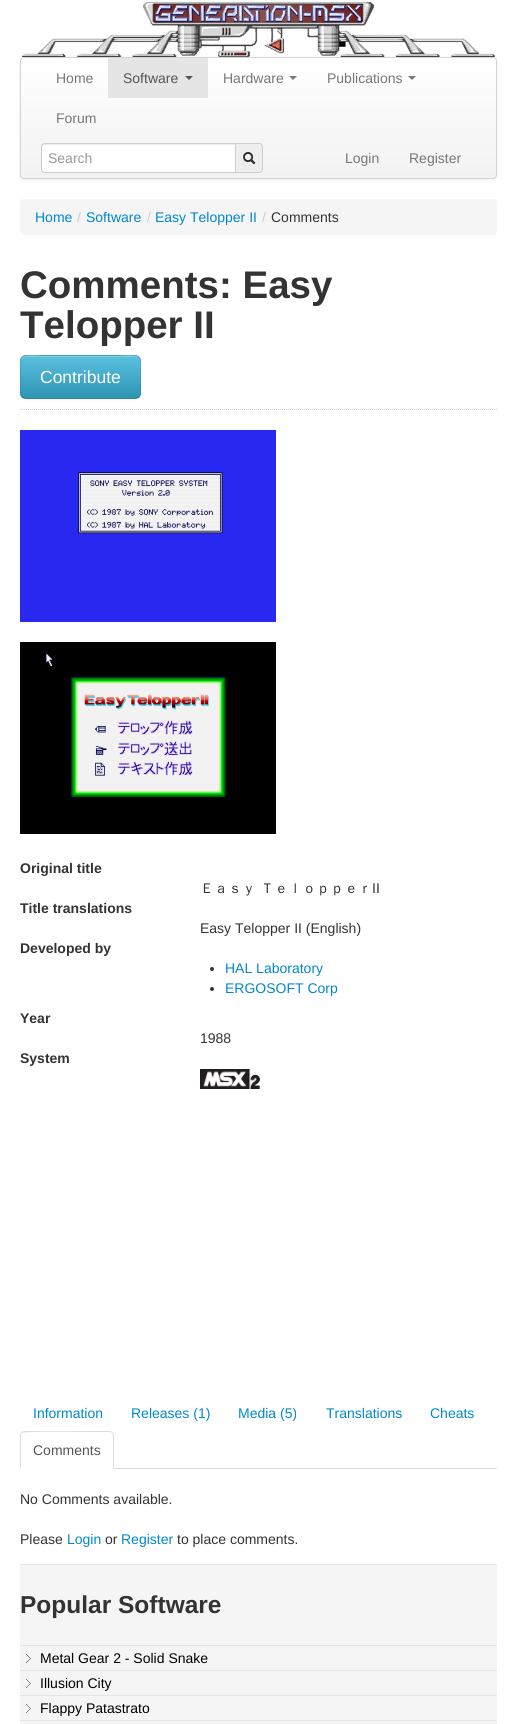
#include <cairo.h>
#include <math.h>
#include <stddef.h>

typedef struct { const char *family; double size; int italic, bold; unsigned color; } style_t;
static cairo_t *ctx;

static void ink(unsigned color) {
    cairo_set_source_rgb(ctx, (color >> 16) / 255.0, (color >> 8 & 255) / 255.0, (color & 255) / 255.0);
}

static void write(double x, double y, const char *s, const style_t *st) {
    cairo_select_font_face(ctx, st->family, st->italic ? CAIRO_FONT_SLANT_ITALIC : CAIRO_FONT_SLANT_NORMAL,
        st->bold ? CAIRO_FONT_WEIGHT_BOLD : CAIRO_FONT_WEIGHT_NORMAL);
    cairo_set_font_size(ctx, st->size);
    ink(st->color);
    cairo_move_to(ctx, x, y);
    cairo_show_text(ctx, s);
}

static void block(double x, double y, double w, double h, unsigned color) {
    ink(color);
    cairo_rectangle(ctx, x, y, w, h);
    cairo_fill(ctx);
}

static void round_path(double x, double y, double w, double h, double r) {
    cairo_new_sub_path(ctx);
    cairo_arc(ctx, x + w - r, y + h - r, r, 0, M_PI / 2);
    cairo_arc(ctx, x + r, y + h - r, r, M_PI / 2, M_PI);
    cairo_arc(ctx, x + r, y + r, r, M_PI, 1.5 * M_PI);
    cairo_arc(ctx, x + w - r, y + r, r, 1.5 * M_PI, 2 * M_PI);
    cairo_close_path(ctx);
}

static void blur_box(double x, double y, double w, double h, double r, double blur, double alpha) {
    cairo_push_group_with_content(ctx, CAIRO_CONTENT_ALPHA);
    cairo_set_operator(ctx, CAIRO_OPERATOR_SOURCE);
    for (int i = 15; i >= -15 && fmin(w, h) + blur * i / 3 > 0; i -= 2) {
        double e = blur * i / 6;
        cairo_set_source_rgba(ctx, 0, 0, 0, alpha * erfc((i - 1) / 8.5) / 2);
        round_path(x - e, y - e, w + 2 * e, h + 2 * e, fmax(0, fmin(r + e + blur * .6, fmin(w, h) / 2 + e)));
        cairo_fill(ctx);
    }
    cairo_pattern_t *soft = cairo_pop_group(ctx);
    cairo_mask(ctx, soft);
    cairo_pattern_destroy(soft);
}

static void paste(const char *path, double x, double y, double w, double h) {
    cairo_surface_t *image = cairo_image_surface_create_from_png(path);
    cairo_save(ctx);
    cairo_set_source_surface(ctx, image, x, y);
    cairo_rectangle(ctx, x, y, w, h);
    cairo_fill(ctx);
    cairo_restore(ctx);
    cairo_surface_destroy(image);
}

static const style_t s1 = {"Liberation Sans", 14, 0, 0, 0x777777};
static const style_t s2 = {"Liberation Sans", 14, 0, 0, 0x555555};
static const style_t s3 = {"Liberation Sans", 14, 0, 0, 0x999999};
static const style_t s4 = {"Liberation Sans", 14, 0, 0, 0x0088cc};
static const style_t s5 = {"Liberation Sans", 14, 0, 0, 0xcccccc};
static const style_t s6 = {"Liberation Sans", 14, 0, 0, 0x333333};
static const style_t s7 = {"Liberation Sans", 38.5, 0, 1, 0x333333};
static const style_t s8 = {"Liberation Sans", 17.5, 0, 0, 0xffffff};
static const style_t s9 = {"Liberation Sans", 14, 0, 1, 0x333333};
static const style_t s10 = {"WenQuanYi Zen Hei Medium", 14, 0, 0, 0x333333};
static const style_t s11 = {"Liberation Sans", 24.5, 0, 1, 0x333333};
static const style_t s12 = {"Liberation Sans", 14, 0, 0, 0x000000};

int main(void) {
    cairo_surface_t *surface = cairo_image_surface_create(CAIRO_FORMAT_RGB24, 517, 1724);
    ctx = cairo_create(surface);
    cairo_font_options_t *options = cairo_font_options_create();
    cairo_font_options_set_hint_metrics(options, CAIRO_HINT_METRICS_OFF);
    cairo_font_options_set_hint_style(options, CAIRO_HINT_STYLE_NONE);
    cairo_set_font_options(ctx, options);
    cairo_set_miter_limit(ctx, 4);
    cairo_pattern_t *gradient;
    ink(0xffffff);
    cairo_paint(ctx);
    ink(0x000000);
    blur_box(20, 58, 477, 122, 4, 2, 0.07);
    paste("pic1.png", 21, 2, 474, 55);
    cairo_save(ctx);
    round_path(20, 57, 477, 122, 4);
    cairo_clip(ctx);
    gradient = cairo_pattern_create_linear(259, 58, 259, 178);
    cairo_pattern_add_color_stop_rgba(gradient, 0, 1, 1, 1, 1);
    cairo_pattern_add_color_stop_rgba(gradient, 1, 0.949, 0.949, 0.949, 1);
    cairo_set_source(ctx, gradient);
    cairo_pattern_destroy(gradient);
    cairo_rectangle(ctx, 20, 58, 477, 120);
    cairo_fill(ctx);
    cairo_restore(ctx);
    round_path(20.5, 57.5, 476, 121, 3.5);
    ink(0xd4d4d4);
    cairo_set_line_width(ctx, 1);
    cairo_stroke(ctx);
    write(56, 83, "Home", &s1);
    block(108, 58, 100, 40, 0xe5e5e5);
    write(123, 83, "Software", &s2);
    cairo_new_path(ctx);
    cairo_move_to(ctx, 185, 76);
    cairo_line_to(ctx, 193, 76);
    cairo_line_to(ctx, 189, 80);
    cairo_close_path(ctx);
    cairo_fill(ctx);
    write(223, 83, "Hardware", &s1);
    cairo_new_path(ctx);
    cairo_move_to(ctx, 289, 76);
    cairo_line_to(ctx, 297, 76);
    cairo_line_to(ctx, 293, 80);
    cairo_close_path(ctx);
    cairo_fill(ctx);
    write(327, 83, "Publications", &s1);
    cairo_new_path(ctx);
    cairo_move_to(ctx, 408, 76);
    cairo_line_to(ctx, 416, 76);
    cairo_line_to(ctx, 412, 80);
    cairo_close_path(ctx);
    cairo_fill(ctx);
    write(56, 123, "Forum", &s1);
    ink(0xeeeeee);
    cairo_new_path(ctx);
    cairo_move_to(ctx, 235.5, 143.5);
    cairo_line_to(ctx, 259, 143.5);
    cairo_curve_to(ctx, 261, 143.5, 262.5, 145, 262.5, 147);
    cairo_line_to(ctx, 262.5, 169);
    cairo_curve_to(ctx, 262.5, 171, 261, 172.5, 259, 172.5);
    cairo_line_to(ctx, 235.5, 172.5);
    cairo_close_path(ctx);
    cairo_fill_preserve(ctx);
    ink(0xcccccc);
    cairo_stroke(ctx);
    ink(0xffffff);
    cairo_new_path(ctx);
    cairo_move_to(ctx, 45, 143);
    cairo_line_to(ctx, 236, 143);
    cairo_line_to(ctx, 236, 173);
    cairo_line_to(ctx, 45, 173);
    cairo_curve_to(ctx, 43, 173, 41, 171, 41, 169);
    cairo_line_to(ctx, 41, 147);
    cairo_curve_to(ctx, 41, 145, 43, 143, 45, 143);
    cairo_close_path(ctx);
    cairo_fill(ctx);
    ink(0xececec);
    cairo_new_path(ctx);
    cairo_move_to(ctx, 45, 145);
    cairo_line_to(ctx, 235, 145);
    cairo_line_to(ctx, 235, 144);
    cairo_line_to(ctx, 45, 144);
    cairo_curve_to(ctx, 43, 144, 42, 146, 42, 148);
    cairo_curve_to(ctx, 42, 146, 43, 145, 45, 145);
    cairo_close_path(ctx);
    cairo_fill(ctx);
    cairo_new_path(ctx);
    cairo_move_to(ctx, 45, 143.5);
    cairo_line_to(ctx, 235.5, 143.5);
    cairo_line_to(ctx, 235.5, 172.5);
    cairo_line_to(ctx, 45, 172.5);
    cairo_curve_to(ctx, 43, 172.5, 41.5, 171, 41.5, 169);
    cairo_line_to(ctx, 41.5, 147);
    cairo_curve_to(ctx, 41.5, 145, 43, 143.5, 45, 143.5);
    cairo_close_path(ctx);
    ink(0xcccccc);
    cairo_stroke(ctx);
    write(48, 163, "Search", &s3);
    paste("pic2.png", 243, 152, 13, 13);
    write(345, 163, "Login", &s1);
    write(409, 163, "Register", &s1);
    ink(0xf5f5f5);
    round_path(20, 199, 477, 36, 4);
    cairo_fill(ctx);
    write(35, 222, "Home", &s4);
    write(77, 222, "/", &s5);
    write(86, 222, "Software", &s4);
    write(147, 222, "/", &s5);
    write(155, 222, "Easy Telopper II", &s4);
    write(262, 222, "/", &s5);
    write(271, 222, "Comments", &s6);
    write(20, 298, "Comments: Easy", &s7);
    write(20, 338, "Telopper II", &s7);
    ink(0x000000);
    blur_box(20, 356, 121, 44, 6, 1, 0.05);
    ink(0x49afcd);
    round_path(20, 355, 121, 44, 6);
    cairo_fill(ctx);
    cairo_save(ctx);
    round_path(20, 355, 121, 44, 6);
    cairo_clip(ctx);
    gradient = cairo_pattern_create_linear(81, 356, 81, 398);
    cairo_pattern_add_color_stop_rgba(gradient, 0, 0.357, 0.753, 0.871, 1);
    cairo_pattern_add_color_stop_rgba(gradient, 1, 0.184, 0.588, 0.706, 1);
    cairo_set_source(ctx, gradient);
    cairo_pattern_destroy(gradient);
    cairo_rectangle(ctx, 20, 356, 121, 42);
    cairo_fill(ctx);
    cairo_restore(ctx);
    cairo_set_source_rgba(ctx, 1, 1, 1, 0.2);
    cairo_new_path(ctx);
    cairo_move_to(ctx, 26, 357);
    cairo_line_to(ctx, 135, 357);
    cairo_curve_to(ctx, 138, 357, 140, 359, 140, 362);
    cairo_curve_to(ctx, 140, 351, 121, 356, 117, 356);
    cairo_line_to(ctx, 44, 356);
    cairo_curve_to(ctx, 40, 356, 21, 351, 21, 362);
    cairo_curve_to(ctx, 21, 359, 23, 357, 26, 357);
    cairo_close_path(ctx);
    cairo_fill(ctx);
    cairo_new_path(ctx);
    cairo_move_to(ctx, 139, 397);
    cairo_line_to(ctx, 135.5, 398.5);
    cairo_line_to(ctx, 25.5, 398.5);
    cairo_line_to(ctx, 22, 397);
    cairo_set_source_rgba(ctx, 0, 0, 0, 0.25);
    cairo_stroke(ctx);
    cairo_new_path(ctx);
    cairo_move_to(ctx, 22, 397);
    cairo_curve_to(ctx, 19.5, 394.5, 20.5, 390.5, 20.5, 387.5);
    cairo_line_to(ctx, 20.5, 377);
    cairo_curve_to(ctx, 20.5, 352, 17.5, 355.5, 44, 355.5);
    cairo_line_to(ctx, 117, 355.5);
    cairo_curve_to(ctx, 143.5, 355.5, 140.5, 352, 140.5, 377);
    cairo_line_to(ctx, 140.5, 387.5);
    cairo_curve_to(ctx, 140.5, 390.5, 141.5, 394.5, 139, 397);
    cairo_set_source_rgba(ctx, 0, 0, 0, 0.1);
    cairo_stroke(ctx);
    write(40, 383, "Contribute", &s8);
    cairo_new_path(ctx);
    cairo_move_to(ctx, 20, 409.5);
    cairo_line_to(ctx, 497, 409.5);
    ink(0xcccccc);
    cairo_set_dash(ctx, (double[]){1, 1}, 2, 0);
    cairo_stroke(ctx);
    paste("pic3.png", 20, 430, 256, 192);
    paste("pic4.png", 20, 642, 256, 192);
    write(20, 873, "Original title", &s9);
    write(200, 893, "Ｅａｓｙ Ｔｅｌｏｐｐｅｒ", &s10);
    write(372, 893, "II", &s6);
    write(20, 913, "Title translations", &s9);
    write(200, 933, "Easy Telopper II (English)", &s6);
    write(20, 953, "Developed by", &s9);
    cairo_new_path(ctx);
    cairo_arc(ctx, 212, 969, 2, 0, 2 * M_PI);
    cairo_fill(ctx);
    write(225, 973, "HAL Laboratory", &s4);
    ink(0x333333);
    cairo_new_path(ctx);
    cairo_arc(ctx, 212, 989, 2, 0, 2 * M_PI);
    cairo_fill(ctx);
    write(225, 993, "ERGOSOFT Corp", &s4);
    write(20, 1023, "Year", &s9);
    write(200, 1043, "1988", &s6);
    write(20, 1063, "System", &s9);
    paste("pic5.png", 200, 1069, 60, 20);
    block(114, 1468, 383, 1, 0xdddddd);
    write(33, 1418, "Information", &s4);
    write(131, 1418, "Releases (1)", &s4);
    write(238, 1418, "Media (5)", &s4);
    write(326, 1418, "Translations", &s4);
    write(430, 1418, "Cheats", &s4);
    ink(0xdddddd);
    cairo_new_path(ctx);
    cairo_move_to(ctx, 24, 1431);
    cairo_line_to(ctx, 21, 1432);
    cairo_line_to(ctx, 22, 1433);
    cairo_curve_to(ctx, 24, 1431, 88, 1432, 96, 1432);
    cairo_line_to(ctx, 110, 1432);
    cairo_line_to(ctx, 112, 1433);
    cairo_line_to(ctx, 113, 1432);
    cairo_line_to(ctx, 110, 1431);
    cairo_close_path(ctx);
    cairo_fill(ctx);
    cairo_new_path(ctx);
    cairo_move_to(ctx, 114, 1469);
    cairo_line_to(ctx, 114, 1435);
    cairo_curve_to(ctx, 114, 1434, 113.5, 1433, 113, 1432);
    cairo_line_to(ctx, 112, 1433);
    cairo_curve_to(ctx, 113, 1433, 113, 1434, 113, 1435);
    cairo_line_to(ctx, 113, 1468);
    cairo_close_path(ctx);
    cairo_fill(ctx);
    cairo_new_path(ctx);
    cairo_move_to(ctx, 20, 1469);
    cairo_line_to(ctx, 21, 1468);
    cairo_line_to(ctx, 21, 1435);
    cairo_curve_to(ctx, 21, 1434, 21, 1433, 22, 1433);
    cairo_line_to(ctx, 21, 1432);
    cairo_curve_to(ctx, 20.5, 1433, 20, 1434, 20, 1435);
    cairo_close_path(ctx);
    cairo_fill(ctx);
    write(33, 1455, "Comments", &s2);
    write(20, 1504, "No Comments available.", &s6);
    write(20, 1544, "Please", &s6);
    write(67, 1544, "Login", &s4);
    write(105, 1544, "or", &s6);
    write(121, 1544, "Register", &s4);
    write(177, 1544, "to place comments.", &s6);
    block(20, 1565, 477, 159, 0xf5f5f5);
    block(20, 1564, 477, 1, 0xe5e5e5);
    write(20, 1613, "Popular Software", &s11);
    block(20, 1645, 477, 1, 0xe5e5e5);
    paste("pic6.png", 26, 1654, 5, 9);
    block(20, 1670, 477, 1, 0xe5e5e5);
    write(40, 1663, "Metal Gear 2 - Solid Snake", &s12);
    paste("pic6.png", 26, 1679, 5, 9);
    block(20, 1695, 477, 1, 0xe5e5e5);
    write(40, 1688, "Illusion City", &s12);
    paste("pic6.png", 26, 1704, 5, 9);
    block(20, 1720, 477, 1, 0xe5e5e5);
    write(40, 1713, "Flappy Patastrato", &s12);
    cairo_surface_write_to_png(surface, "screenshot.png");
    cairo_font_options_destroy(options);
    cairo_destroy(ctx);
    cairo_surface_destroy(surface);
    return 0;
}
